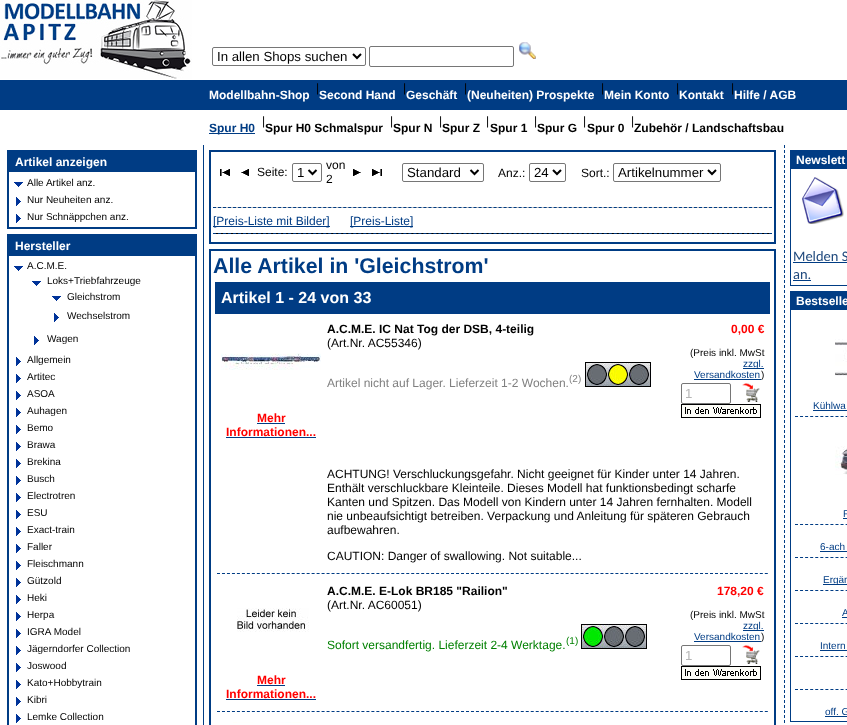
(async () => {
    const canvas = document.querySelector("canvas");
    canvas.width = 847;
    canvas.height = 725;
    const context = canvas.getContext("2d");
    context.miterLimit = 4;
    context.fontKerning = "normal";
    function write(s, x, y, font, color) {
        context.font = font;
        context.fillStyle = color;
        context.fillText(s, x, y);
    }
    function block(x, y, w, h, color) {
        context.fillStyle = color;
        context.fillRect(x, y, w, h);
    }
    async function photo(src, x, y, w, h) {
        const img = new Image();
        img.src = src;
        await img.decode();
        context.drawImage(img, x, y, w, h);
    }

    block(0, 0, 847, 725, "rgb(255, 255, 255)");
    await photo("media/1.png", 0, 0, 192, 79);
    context.beginPath();
    context.roundRect(212.5, 47.5, 153, 18, 1.5);
    context.strokeStyle = "rgb(118, 118, 118)";
    context.stroke();
    context.beginPath();
    context.moveTo(353, 54);
    context.lineTo(357, 58);
    context.lineTo(361, 54);
    context.strokeStyle = "rgb(0, 0, 0)";
    context.lineWidth = 2;
    context.stroke();
    write("In allen Shops suchen", 217, 61, "13.25px Liberation Sans", "rgb(0, 0, 0)");
    context.beginPath();
    context.roundRect(369.5, 46.5, 144, 20, 1.5);
    context.strokeStyle = "rgb(118, 118, 118)";
    context.lineWidth = 1;
    context.stroke();
    await photo("media/2.png", 519, 42, 17, 17);
    block(0, 80, 847, 30, "rgb(0, 60, 132)");
    write("Modellbahn-Shop", 209, 99, "bold 12px Liberation Sans", "rgb(255, 255, 255)");
    write("|", 316, 92, "12px Liberation Sans", "rgb(0, 0, 0)");
    write("Second Hand", 319, 99, "bold 12px Liberation Sans", "rgb(255, 255, 255)");
    write("|", 403, 92, "12px Liberation Sans", "rgb(0, 0, 0)");
    write("Geschäft", 406, 99, "bold 12px Liberation Sans", "rgb(255, 255, 255)");
    write("|", 464, 92, "12px Liberation Sans", "rgb(0, 0, 0)");
    write("(Neuheiten) Prospekte", 467, 99, "bold 12px Liberation Sans", "rgb(255, 255, 255)");
    write("|", 601, 92, "12px Liberation Sans", "rgb(0, 0, 0)");
    write("Mein Konto", 604, 99, "bold 12px Liberation Sans", "rgb(255, 255, 255)");
    write("|", 676, 92, "12px Liberation Sans", "rgb(0, 0, 0)");
    write("Kontakt", 679, 99, "bold 12px Liberation Sans", "rgb(255, 255, 255)");
    write("|", 731, 92, "12px Liberation Sans", "rgb(0, 0, 0)");
    write("Hilfe / AGB", 734, 99, "bold 12px Liberation Sans", "rgb(255, 255, 255)");
    block(209, 133, 46, 1, "rgb(0, 60, 132)");
    write("Spur H0", 209, 132, "bold 12px Liberation Sans", "rgb(0, 60, 132)");
    write("|", 262, 125, "12px Liberation Sans", "rgb(0, 0, 0)");
    write("Spur H0 Schmalspur", 265, 132, "bold 12px Liberation Sans", "rgb(0, 0, 0)");
    write("|", 390, 125, "12px Liberation Sans", "rgb(0, 0, 0)");
    write("Spur N", 393, 132, "bold 12px Liberation Sans", "rgb(0, 0, 0)");
    write("|", 439, 125, "12px Liberation Sans", "rgb(0, 0, 0)");
    write("Spur Z", 442, 132, "bold 12px Liberation Sans", "rgb(0, 0, 0)");
    write("|", 486, 125, "12px Liberation Sans", "rgb(0, 0, 0)");
    write("Spur 1", 490, 132, "bold 12px Liberation Sans", "rgb(0, 0, 0)");
    write("|", 534, 125, "12px Liberation Sans", "rgb(0, 0, 0)");
    write("Spur G", 537, 132, "bold 12px Liberation Sans", "rgb(0, 0, 0)");
    write("|", 583, 125, "12px Liberation Sans", "rgb(0, 0, 0)");
    write("Spur 0", 587, 132, "bold 12px Liberation Sans", "rgb(0, 0, 0)");
    write("|", 631, 125, "12px Liberation Sans", "rgb(0, 0, 0)");
    write("Zubehör / Landschaftsbau", 634, 132, "bold 12px Liberation Sans", "rgb(0, 0, 0)");
    block(203, 145, 1, 580, "rgb(0, 60, 132)");
    context.strokeStyle = "rgb(0, 60, 132)";
    context.lineWidth = 2;
    context.strokeRect(8, 151, 188, 77);
    block(9, 152, 186, 20, "rgb(0, 60, 132)");
    write("Artikel anzeigen", 15, 166, "bold 12px Liberation Sans", "rgb(255, 255, 255)");
    await photo("media/3.png", 14, 182, 9, 5);
    write("Alle Artikel anz.", 27, 186, "10px Liberation Sans", "rgb(0, 0, 0)");
    await photo("media/4.png", 16, 197, 5, 9);
    write("Nur Neuheiten anz.", 27, 203, "10px Liberation Sans", "rgb(0, 0, 0)");
    await photo("media/4.png", 16, 214, 5, 9);
    write("Nur Schnäppchen anz.", 27, 220, "10px Liberation Sans", "rgb(0, 0, 0)");
    context.strokeRect(8, 235, 188, 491);
    block(9, 236, 186, 20, "rgb(0, 60, 132)");
    write("Hersteller", 15, 250, "bold 12px Liberation Sans", "rgb(255, 255, 255)");
    await photo("media/3.png", 14, 266, 9, 5);
    write("A.C.M.E.", 27, 269, "10px Liberation Sans", "rgb(0, 0, 0)");
    await photo("media/3.png", 32, 281, 9, 5);
    write("Loks+Triebfahrzeuge", 47, 284, "10px Liberation Sans", "rgb(0, 0, 0)");
    await photo("media/3.png", 52, 296, 9, 5);
    write("Gleichstrom", 67, 300, "10px Liberation Sans", "rgb(0, 0, 0)");
    await photo("media/4.png", 54, 313, 5, 9);
    write("Wechselstrom", 67, 319, "10px Liberation Sans", "rgb(0, 0, 0)");
    await photo("media/4.png", 34, 336, 5, 9);
    write("Wagen", 47, 342, "10px Liberation Sans", "rgb(0, 0, 0)");
    await photo("media/4.png", 16, 357, 5, 9);
    write("Allgemein", 27, 363, "10px Liberation Sans", "rgb(0, 0, 0)");
    await photo("media/4.png", 16, 374, 5, 9);
    write("Artitec", 27, 380, "10px Liberation Sans", "rgb(0, 0, 0)");
    await photo("media/4.png", 16, 391, 5, 9);
    write("ASOA", 27, 397, "10px Liberation Sans", "rgb(0, 0, 0)");
    await photo("media/4.png", 16, 408, 5, 9);
    write("Auhagen", 27, 414, "10px Liberation Sans", "rgb(0, 0, 0)");
    await photo("media/4.png", 16, 425, 5, 9);
    write("Bemo", 27, 431, "10px Liberation Sans", "rgb(0, 0, 0)");
    await photo("media/4.png", 16, 442, 5, 9);
    write("Brawa", 27, 448, "10px Liberation Sans", "rgb(0, 0, 0)");
    await photo("media/4.png", 16, 459, 5, 9);
    write("Brekina", 27, 465, "10px Liberation Sans", "rgb(0, 0, 0)");
    await photo("media/4.png", 16, 476, 5, 9);
    write("Busch", 27, 482, "10px Liberation Sans", "rgb(0, 0, 0)");
    await photo("media/4.png", 16, 493, 5, 9);
    write("Electrotren", 27, 499, "10px Liberation Sans", "rgb(0, 0, 0)");
    await photo("media/4.png", 16, 510, 5, 9);
    write("ESU", 27, 516, "10px Liberation Sans", "rgb(0, 0, 0)");
    await photo("media/4.png", 16, 527, 5, 9);
    write("Exact-train", 27, 533, "10px Liberation Sans", "rgb(0, 0, 0)");
    await photo("media/4.png", 16, 544, 5, 9);
    write("Faller", 27, 550, "10px Liberation Sans", "rgb(0, 0, 0)");
    await photo("media/4.png", 16, 561, 5, 9);
    write("Fleischmann", 27, 567, "10px Liberation Sans", "rgb(0, 0, 0)");
    await photo("media/4.png", 16, 578, 5, 9);
    write("Gützold", 27, 584, "10px Liberation Sans", "rgb(0, 0, 0)");
    await photo("media/4.png", 16, 595, 5, 9);
    write("Heki", 27, 601, "10px Liberation Sans", "rgb(0, 0, 0)");
    await photo("media/4.png", 16, 612, 5, 9);
    write("Herpa", 27, 618, "10px Liberation Sans", "rgb(0, 0, 0)");
    await photo("media/4.png", 16, 629, 5, 9);
    write("IGRA Model", 27, 635, "10px Liberation Sans", "rgb(0, 0, 0)");
    await photo("media/4.png", 16, 646, 5, 9);
    write("Jägerndorfer Collection", 27, 652, "10px Liberation Sans", "rgb(0, 0, 0)");
    await photo("media/4.png", 16, 663, 5, 9);
    write("Joswood", 27, 669, "10px Liberation Sans", "rgb(0, 0, 0)");
    await photo("media/4.png", 16, 680, 5, 9);
    write("Kato+Hobbytrain", 27, 686, "10px Liberation Sans", "rgb(0, 0, 0)");
    await photo("media/4.png", 16, 697, 5, 9);
    write("Kibri", 27, 703, "10px Liberation Sans", "rgb(0, 0, 0)");
    await photo("media/4.png", 16, 714, 5, 9);
    write("Lemke Collection", 27, 720, "10px Liberation Sans", "rgb(0, 0, 0)");
    context.strokeRect(210, 151, 565, 92);
    await photo("media/5.png", 220, 169, 10, 7);
    await photo("media/6.png", 241, 169, 8, 7);
    write("Seite:", 257, 176, "12px Liberation Sans", "rgb(0, 0, 0)");
    context.beginPath();
    context.roundRect(292.5, 163.5, 29, 18, 1.5);
    context.strokeStyle = "rgb(118, 118, 118)";
    context.lineWidth = 1;
    context.stroke();
    context.beginPath();
    context.moveTo(308.5, 170);
    context.lineTo(312.5, 174);
    context.lineTo(316.5, 170);
    context.strokeStyle = "rgb(0, 0, 0)";
    context.lineWidth = 2;
    context.stroke();
    write("1", 297, 177, "13.25px Liberation Sans", "rgb(0, 0, 0)");
    write("von", 326, 169, "12px Liberation Sans", "rgb(0, 0, 0)");
    write("2", 326, 183, "12px Liberation Sans", "rgb(0, 0, 0)");
    await photo("media/7.png", 353, 169, 8, 7);
    await photo("media/8.png", 372, 169, 10, 7);
    context.beginPath();
    context.roundRect(402.5, 163.5, 81, 18, 1.5);
    context.strokeStyle = "rgb(118, 118, 118)";
    context.lineWidth = 1;
    context.stroke();
    context.beginPath();
    context.moveTo(470.5, 170);
    context.lineTo(474.5, 174);
    context.lineTo(478.5, 170);
    context.strokeStyle = "rgb(0, 0, 0)";
    context.lineWidth = 2;
    context.stroke();
    write("Standard", 407, 177, "13.25px Liberation Sans", "rgb(0, 0, 0)");
    write("Anz.:", 498, 177, "12px Liberation Sans", "rgb(0, 0, 0)");
    context.beginPath();
    context.roundRect(529.5, 163.5, 36, 18, 1.5);
    context.strokeStyle = "rgb(118, 118, 118)";
    context.lineWidth = 1;
    context.stroke();
    context.beginPath();
    context.moveTo(553, 170);
    context.lineTo(557, 174);
    context.lineTo(561, 170);
    context.strokeStyle = "rgb(0, 0, 0)";
    context.lineWidth = 2;
    context.stroke();
    write("24", 534, 177, "13.25px Liberation Sans", "rgb(0, 0, 0)");
    write("Sort.:", 581, 177, "12px Liberation Sans", "rgb(0, 0, 0)");
    context.beginPath();
    context.roundRect(613.5, 163.5, 107, 18, 1.5);
    context.strokeStyle = "rgb(118, 118, 118)";
    context.lineWidth = 1;
    context.stroke();
    context.beginPath();
    context.moveTo(708, 170);
    context.lineTo(712, 174);
    context.lineTo(716, 170);
    context.strokeStyle = "rgb(0, 0, 0)";
    context.lineWidth = 2;
    context.stroke();
    write("Artikelnummer", 618, 177, "13.25px Liberation Sans", "rgb(0, 0, 0)");
    block(213, 207, 559, 1, "rgb(192, 192, 192)");
    context.beginPath();
    context.moveTo(213, 207.5);
    context.lineTo(772, 207.5);
    context.strokeStyle = "rgb(0, 60, 132)";
    context.lineWidth = 1;
    context.setLineDash([3, 2.01]);
    context.stroke();
    block(213, 226, 117, 1, "rgb(0, 60, 132)");
    write("[Preis-Liste mit Bilder]", 213, 225, "12px Liberation Sans", "rgb(0, 60, 132)");
    block(350, 226, 63, 1, "rgb(0, 60, 132)");
    write("[Preis-Liste]", 350, 225, "12px Liberation Sans", "rgb(0, 60, 132)");
    block(213, 233, 559, 1, "rgb(0, 0, 0)");
    context.beginPath();
    context.moveTo(213, 233.5);
    context.lineTo(772, 233.5);
    context.stroke();
    context.lineWidth = 2;
    context.setLineDash([]);
    context.strokeRect(210, 250, 565, 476);
    write("Alle Artikel in 'Gleichstrom'", 213, 273, "bold 21.3px Liberation Sans", "rgb(0, 60, 132)");
    block(215, 282, 555, 32, "rgb(0, 60, 132)");
    write("Artikel 1 - 24 von 33", 221, 303, "bold 16px Liberation Sans", "rgb(255, 255, 255)");
    write("A.C.M.E. IC Nat Tog der DSB, 4-teilig", 327, 333, "bold 12px Liberation Sans", "rgb(0, 0, 0)");
    write("(Art.Nr. AC55346)", 327, 347, "12px Liberation Sans", "rgb(0, 0, 0)");
    write("Artikel nicht auf Lager. Lieferzeit 1-2 Wochen.", 327, 387, "12px Liberation Sans", "rgb(128, 128, 128)");
    write("(2)", 569, 382, "10px Liberation Sans", "rgb(128, 128, 128)");
    await photo("media/9.png", 585, 362, 66, 25);
    write("0,00 €", 731, 333, "bold 12px Liberation Sans", "rgb(255, 0, 0)");
    write("(Preis inkl. MwSt", 690, 356, "10px Liberation Sans", "rgb(0, 0, 0)");
    block(743, 368, 21, 1, "rgb(0, 60, 132)");
    write("zzgl.", 743, 367, "10px Liberation Sans", "rgb(0, 60, 132)");
    write("Versandkosten", 694, 378, "10px Liberation Sans", "rgb(0, 60, 132)");
    block(694, 379, 67, 1, "rgb(0, 60, 132)");
    write(")", 761, 378, "10px Liberation Sans", "rgb(0, 0, 0)");
    context.beginPath();
    context.roundRect(681.5, 383.5, 49, 20, 1.5);
    context.strokeStyle = "rgb(118, 118, 118)";
    context.lineWidth = 1;
    context.stroke();
    write("1", 685, 398, "13.25px Liberation Sans", "rgb(182, 182, 182)");
    await photo("media/10.png", 742, 383, 18, 19);
    await photo("media/11.png", 681, 404, 80, 14);
    await photo("media/12.png", 221, 353, 100, 17);
    write("Mehr", 257, 422, "bold 12px Liberation Sans", "rgb(255, 0, 0)");
    block(257, 423, 28, 1, "rgb(0, 60, 132)");
    write("Informationen...", 226, 436, "bold 12px Liberation Sans", "rgb(255, 0, 0)");
    block(226, 437, 90, 1, "rgb(0, 60, 132)");
    write("ACHTUNG! Verschluckungsgefahr. Nicht geeignet für Kinder unter 14 Jahren.", 327, 478, "12px Liberation Sans", "rgb(0, 0, 0)");
    write("Enthält verschluckbare Kleinteile. Dieses Modell hat funktionsbedingt scharfe", 327, 492, "12px Liberation Sans", "rgb(0, 0, 0)");
    write("Kanten und Spitzen. Das Modell von Kindern unter 14 Jahren fernhalten. Modell", 327, 506, "12px Liberation Sans", "rgb(0, 0, 0)");
    write("nie unbeaufsichtigt betreiben. Verpackung und Anleitung für späteren Gebrauch", 327, 520, "12px Liberation Sans", "rgb(0, 0, 0)");
    write("aufbewahren.", 327, 534, "12px Liberation Sans", "rgb(0, 0, 0)");
    write("CAUTION: Danger of swallowing. Not suitable...", 327, 560, "12px Liberation Sans", "rgb(0, 0, 0)");
    context.beginPath();
    context.moveTo(217, 573.5);
    context.lineTo(768, 573.5);
    context.strokeStyle = "rgb(0, 60, 132)";
    context.setLineDash([3, 1.98]);
    context.stroke();
    write("A.C.M.E. E-Lok BR185 \"Railion\"", 327, 595, "bold 12px Liberation Sans", "rgb(0, 0, 0)");
    write("(Art.Nr. AC60051)", 327, 609, "12px Liberation Sans", "rgb(0, 0, 0)");
    write("Sofort versandfertig. Lieferzeit 2-4 Werktage.", 327, 649, "12px Liberation Sans", "rgb(0, 128, 0)");
    write("(1)", 566, 644, "10px Liberation Sans", "rgb(0, 128, 0)");
    await photo("media/13.png", 581, 624, 66, 25);
    write("178,20 €", 717, 595, "bold 12px Liberation Sans", "rgb(255, 0, 0)");
    write("(Preis inkl. MwSt", 690, 618, "10px Liberation Sans", "rgb(0, 0, 0)");
    block(743, 630, 21, 1, "rgb(0, 60, 132)");
    write("zzgl.", 743, 629, "10px Liberation Sans", "rgb(0, 60, 132)");
    write("Versandkosten", 694, 640, "10px Liberation Sans", "rgb(0, 60, 132)");
    block(694, 641, 67, 1, "rgb(0, 60, 132)");
    write(")", 761, 640, "10px Liberation Sans", "rgb(0, 0, 0)");
    context.beginPath();
    context.roundRect(681.5, 645.5, 49, 20, 1.5);
    context.strokeStyle = "rgb(118, 118, 118)";
    context.setLineDash([]);
    context.stroke();
    write("1", 685, 660, "13.25px Liberation Sans", "rgb(182, 182, 182)");
    await photo("media/10.png", 742, 645, 18, 19);
    await photo("media/11.png", 681, 666, 80, 14);
    await photo("media/14.png", 237, 608, 72, 24);
    write("Mehr", 257, 684, "bold 12px Liberation Sans", "rgb(255, 0, 0)");
    block(257, 685, 28, 1, "rgb(0, 60, 132)");
    write("Informationen...", 226, 698, "bold 12px Liberation Sans", "rgb(255, 0, 0)");
    block(226, 699, 90, 1, "rgb(0, 60, 132)");
    context.beginPath();
    context.moveTo(217, 711.5);
    context.lineTo(768, 711.5);
    context.strokeStyle = "rgb(0, 60, 132)";
    context.setLineDash([3, 1.98]);
    context.stroke();
    await photo("media/15.png", 233, 722, 68, 1);
    context.beginPath();
    context.moveTo(784.5, 145);
    context.lineTo(784.5, 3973);
    context.setLineDash([3, 2]);
    context.stroke();
    context.setLineDash([]);
    context.strokeRect(790.5, 150.5, 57, 135);
    block(791, 151, 56, 18, "rgb(0, 60, 132)");
    write("Newslett", 796, 164, "bold 12px Liberation Sans", "rgb(255, 255, 255)");
    await photo("media/16.png", 802, 177, 42, 47);
    write("Melden S", 793, 261, "14.5px Carlito", "rgb(31, 73, 125)");
    block(793, 262, 54, 1, "rgb(0, 60, 132)");
    write("an.", 793, 279, "14.5px Carlito", "rgb(31, 73, 125)");
    block(793, 280, 18, 1, "rgb(0, 60, 132)");
    context.strokeRect(790.5, 291.5, 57, 430);
    block(791, 292, 56, 18, "rgb(0, 60, 132)");
    write("Bestselle", 796, 305, "bold 12px Liberation Sans", "rgb(255, 255, 255)");
    await photo("media/17.png", 835, 339, 12, 37);
    write("Kühlwa", 813, 409, "10px Liberation Sans", "rgb(0, 60, 132)");
    block(813, 410, 34, 1, "rgb(0, 60, 132)");
    context.beginPath();
    context.moveTo(795, 416.5);
    context.lineTo(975, 416.5);
    context.setLineDash([3, 2.06]);
    context.stroke();
    await photo("media/18.png", 835, 446, 12, 29);
    write("F", 843, 517, "10px Liberation Sans", "rgb(0, 60, 132)");
    block(843, 518, 4, 1, "rgb(0, 60, 132)");
    block(820, 551, 27, 1, "rgb(0, 60, 132)");
    context.beginPath();
    context.moveTo(795, 524.5);
    context.lineTo(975, 524.5);
    context.moveTo(795, 557.5);
    context.lineTo(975, 557.5);
    context.stroke();
    write("6-ach", 820, 550, "10px Liberation Sans", "rgb(0, 60, 132)");
    block(823, 584, 24, 1, "rgb(0, 60, 132)");
    write("Ergän", 823, 583, "10px Liberation Sans", "rgb(0, 60, 132)");
    block(842, 617, 5, 1, "rgb(0, 60, 132)");
    context.beginPath();
    context.moveTo(795, 590.5);
    context.lineTo(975, 590.5);
    context.moveTo(795, 623.5);
    context.lineTo(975, 623.5);
    context.stroke();
    write("A", 842, 616, "10px Liberation Sans", "rgb(0, 60, 132)");
    write("Intern", 820, 649, "10px Liberation Sans", "rgb(0, 60, 132)");
    block(820, 650, 27, 1, "rgb(0, 60, 132)");
    context.beginPath();
    context.moveTo(795, 656.5);
    context.lineTo(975, 656.5);
    context.moveTo(795, 689.5);
    context.lineTo(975, 689.5);
    context.stroke();
    write("off. G", 825, 715, "10px Liberation Sans", "rgb(0, 60, 132)");
    block(825, 716, 22, 1, "rgb(0, 60, 132)");
})();
